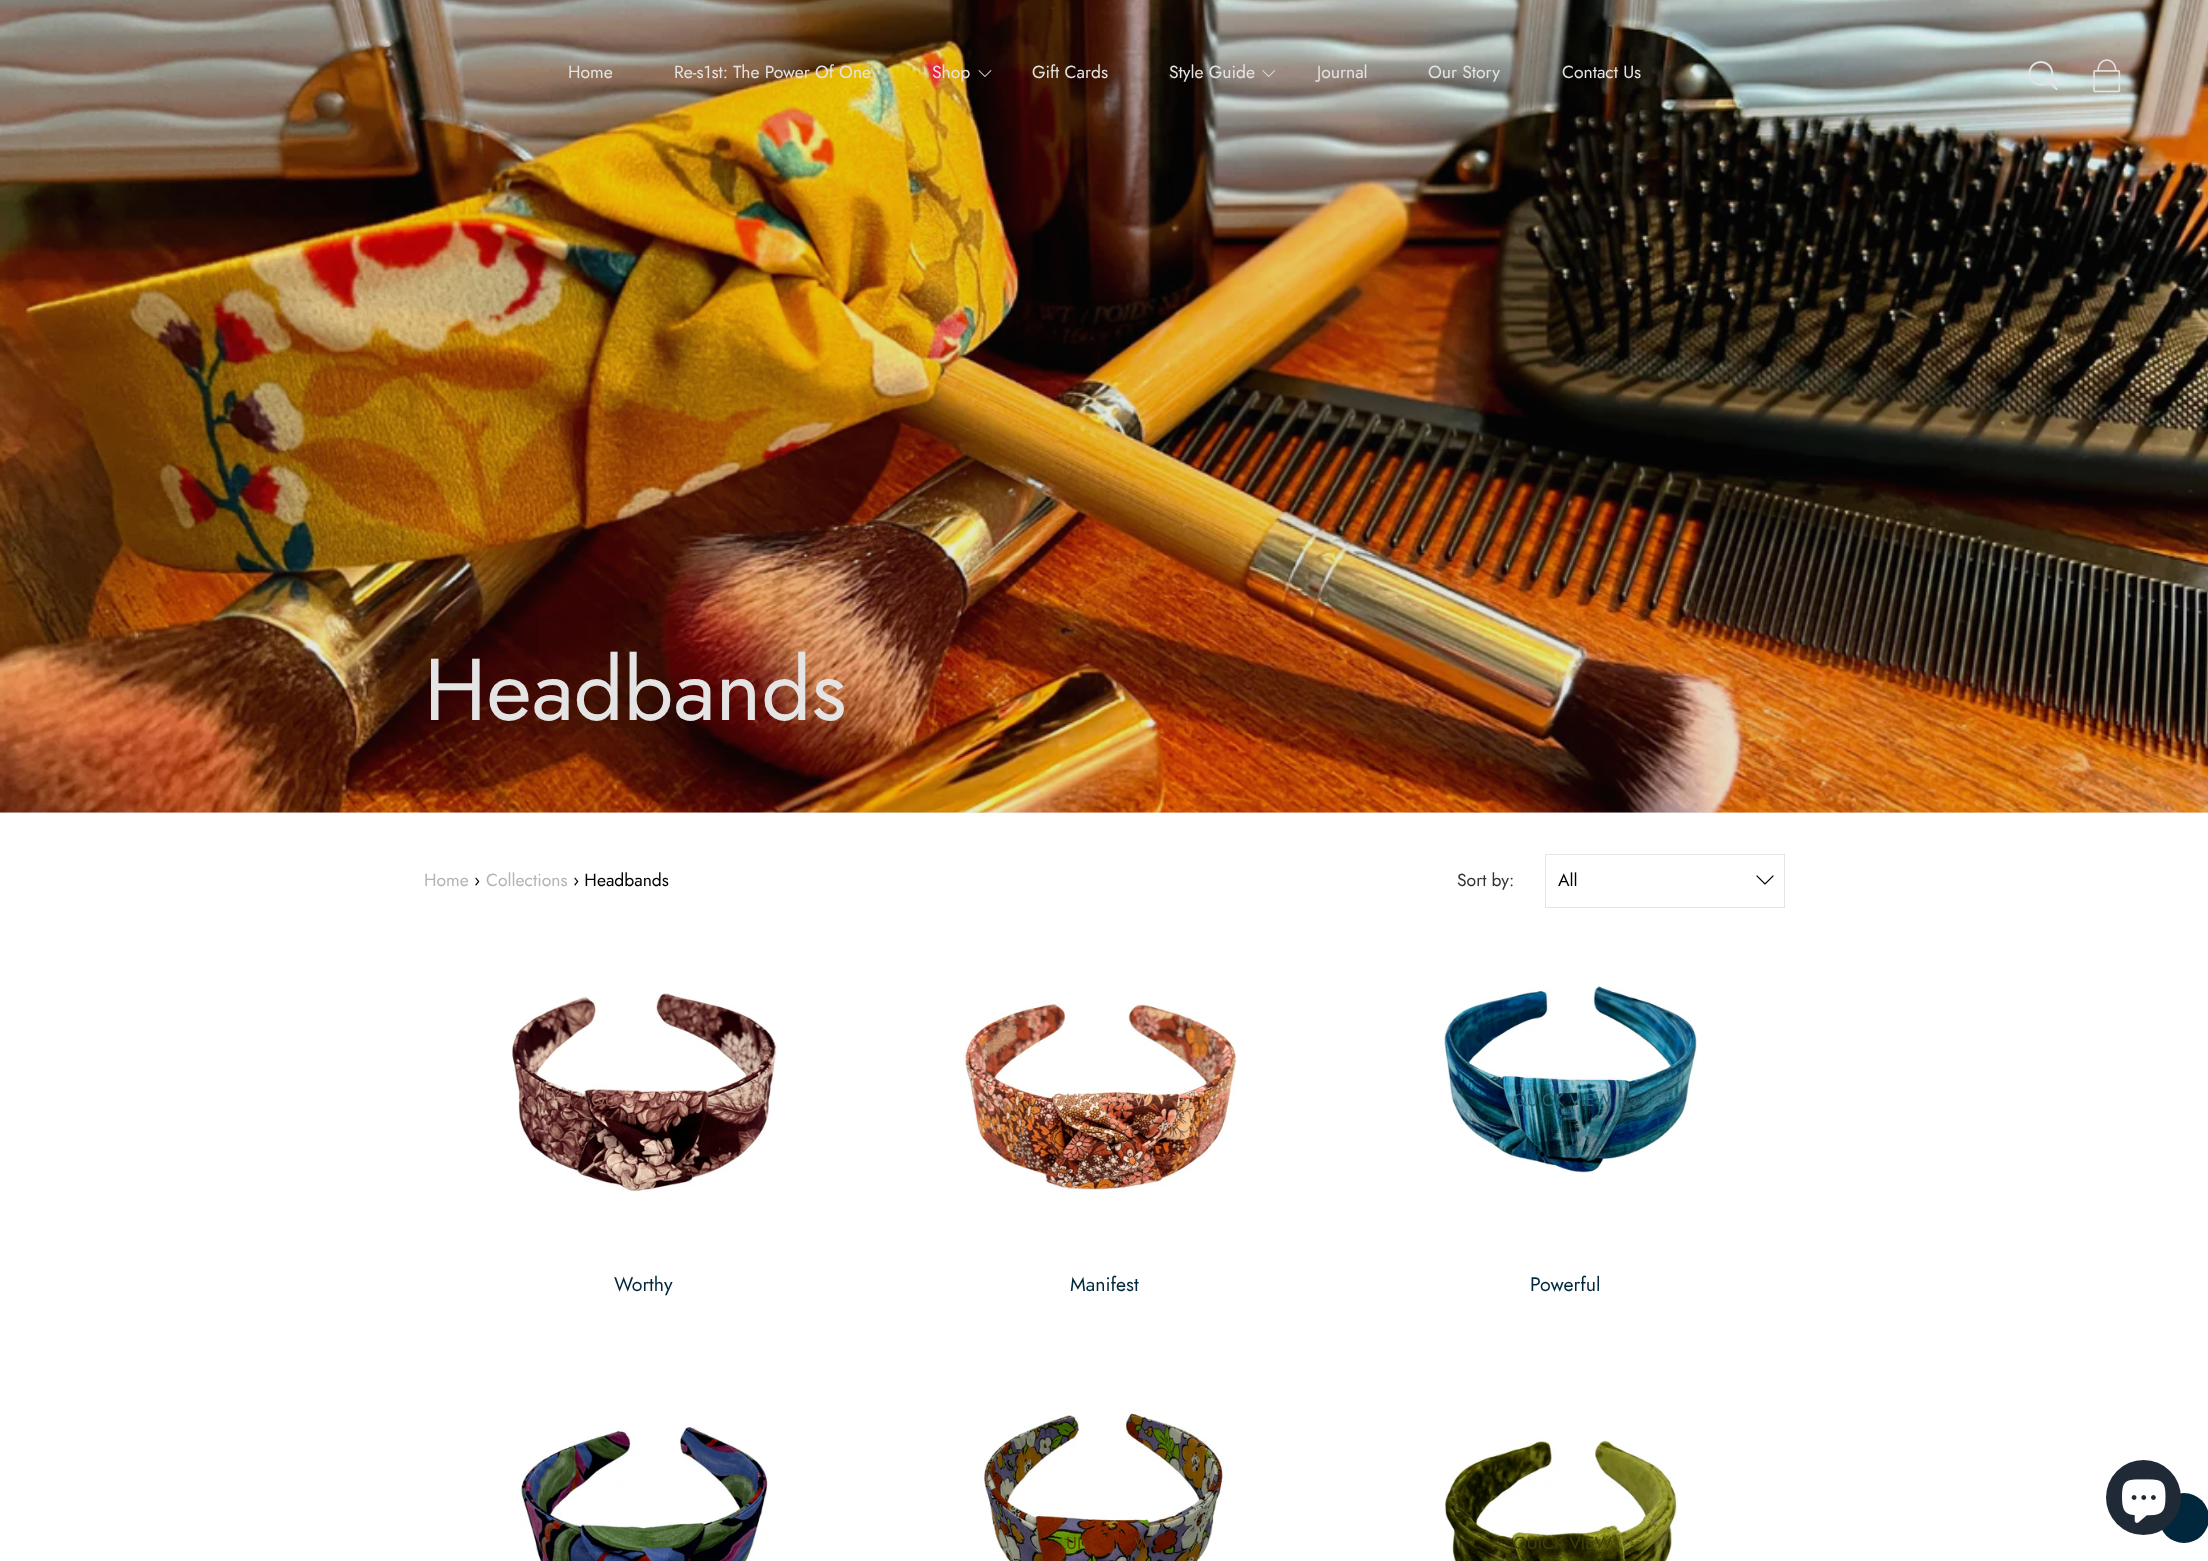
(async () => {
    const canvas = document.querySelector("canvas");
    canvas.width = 2208;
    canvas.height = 1561;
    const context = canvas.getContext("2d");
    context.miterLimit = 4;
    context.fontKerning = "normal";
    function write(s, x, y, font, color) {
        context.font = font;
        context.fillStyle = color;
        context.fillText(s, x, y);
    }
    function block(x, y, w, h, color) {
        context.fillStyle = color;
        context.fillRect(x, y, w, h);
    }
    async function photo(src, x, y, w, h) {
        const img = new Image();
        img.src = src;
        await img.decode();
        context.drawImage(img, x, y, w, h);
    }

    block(0, 0, 2208, 1561, "rgb(255, 255, 255)");
    block(0, 812, 2208, 1, "rgb(233, 233, 233)");
    await photo("media/5.png", 0, 0, 2208, 813);
    write("Home", 568, 78, "17.5px Jost", "rgb(228, 228, 228)");
    write("Re-s1st: The Power Of One", 674, 78, "17.5px Jost", "rgb(228, 228, 228)");
    write("Shop", 932, 78, "17.5px Jost", "rgb(228, 228, 228)");
    await photo("media/1.png", 978, 70, 14, 7);
    write("Gift Cards", 1032, 78, "17.5px Jost", "rgb(228, 228, 228)");
    write("Style Guide", 1169, 78, "17.5px Jost", "rgb(228, 228, 228)");
    await photo("media/2.png", 1262, 70, 13, 7);
    write("Journal", 1317, 78, "17.5px Jost", "rgb(228, 228, 228)");
    write("Our Story", 1428, 78, "17.5px Jost", "rgb(228, 228, 228)");
    write("Contact Us", 1562, 78, "17.5px Jost", "rgb(228, 228, 228)");
    await photo("media/3.png", 2028, 61, 30, 30);
    await photo("media/4.png", 2093, 59, 28, 34);
    write("Headbands", 424, 720, "87.5px Jost", "rgb(228, 228, 228)");
    write("Home", 424, 886, "17.5px Jost", "rgb(179, 179, 179)");
    write("›", 474, 886, "17.5px Jost", "rgb(0, 0, 0)");
    write("Collections", 486, 886, "17.5px Jost", "rgb(179, 179, 179)");
    write("› Headbands", 573, 886, "17.5px Jost", "rgb(0, 0, 0)");
    write("Sort by:", 1457, 886, "17.5px Jost", "rgb(51, 51, 51)");
    context.strokeStyle = "rgb(228, 228, 228)";
    context.strokeRect(1545.5, 854.5, 239, 53);
    write("All", 1558, 886, "17.5px Jost", "rgb(0, 0, 0)");
    await photo("media/6.png", 1756, 875, 18, 10);
    await photo("media/7.png", 511, 993, 266, 199);
    write("QUICK VIEW", 591, 1106, "17.5px Jost", "rgb(145, 94, 86)");
    write("Worthy", 614, 1291, "19.5px Jost", "rgb(0, 39, 60)");
    await photo("media/8.png", 960, 1000, 277, 192);
    write("QUICK VIEW", 1052, 1106, "17.5px Jost", "rgb(199, 148, 121)");
    write("Manifest", 1070, 1291, "19.5px Jost", "rgb(0, 39, 60)");
    await photo("media/9.png", 1443, 986, 254, 187);
    write("QUICK VIEW", 1513, 1106, "17.5px Jost", "rgb(39, 98, 118)");
    write("Powerful", 1530, 1291, "19.5px Jost", "rgb(0, 39, 60)");
    await photo("media/10.png", 520, 1426, 249, 135);
    await photo("media/11.png", 984, 1410, 240, 151);
    write("UI", 1066, 1549, "17.5px Jost", "rgb(99, 58, 7)");
    write("W", 1134, 1549, "17.5px Jost", "rgb(99, 58, 7)");
    await photo("media/12.png", 1444, 1436, 234, 125);
    write("QUICK VIEW", 1513, 1549, "17.5px Jost", "rgb(65, 65, 7)");
    context.fillStyle = "rgb(0, 39, 60)";
    context.beginPath();
    context.arc(2184, 1518, 25, 0, Math.PI * 2);
    context.fill();
    context.fillStyle = "rgb(32, 42, 54)";
    context.beginPath();
    context.arc(2143.5, 1497.5, 37.5, 0, Math.PI * 2);
    context.fill();
    await photo("media/13.png", 2122, 1479, 44, 44);
})();
